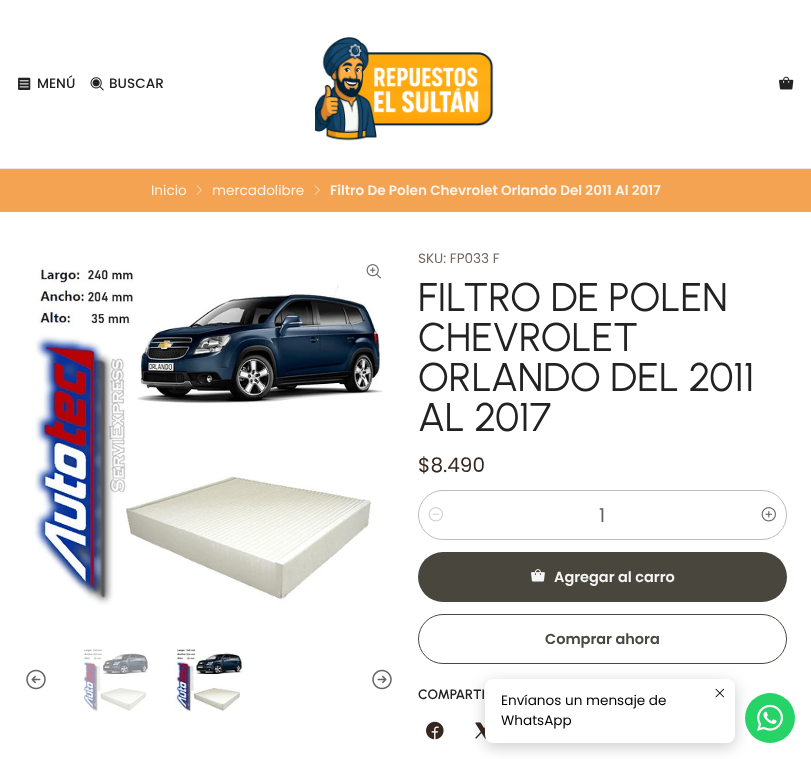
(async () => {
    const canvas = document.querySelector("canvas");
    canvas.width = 811;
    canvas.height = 759;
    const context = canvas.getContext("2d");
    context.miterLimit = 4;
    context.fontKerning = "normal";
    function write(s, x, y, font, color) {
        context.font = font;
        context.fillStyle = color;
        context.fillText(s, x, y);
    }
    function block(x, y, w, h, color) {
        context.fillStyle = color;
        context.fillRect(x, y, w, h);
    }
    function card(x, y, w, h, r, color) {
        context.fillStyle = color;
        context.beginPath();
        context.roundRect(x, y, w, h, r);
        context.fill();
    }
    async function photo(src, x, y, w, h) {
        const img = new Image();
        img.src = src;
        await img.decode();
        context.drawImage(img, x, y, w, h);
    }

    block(0, 0, 811, 759, "rgb(255, 255, 255)");
    block(0, 168, 811, 1, "rgb(233, 233, 233)");
    await photo("media/1.png", 18, 77, 13, 13);
    write("MENÚ", 37, 88, "500 13.6px Poppins", "rgb(34, 34, 34)");
    await photo("media/2.png", 90, 77, 14, 14);
    write("BUSCAR", 109, 88, "500 13.6px Poppins", "rgb(34, 34, 34)");
    await photo("media/3.png", 315, 37, 179, 104);
    await photo("media/4.png", 779, 76, 15, 14);
    block(0, 169, 811, 43, "rgb(244, 163, 83)");
    write("Inicio", 151, 195, "13.6px Poppins", "rgb(245, 244, 237)");
    await photo("media/5.png", 196, 185, 6, 10);
    write("mercadolibre", 212, 195, "13.6px Poppins", "rgb(245, 244, 237)");
    await photo("media/5.png", 314, 185, 6, 10);
    write("Filtro De Polen Chevrolet Orlando Del 2011 Al 2017", 330, 195, "600 13.6px Poppins", "rgb(245, 244, 237)");
    await photo("media/7.png", 34, 267, 349, 338);
    await photo("media/6.png", 366, 264, 15, 15);
    await photo("media/8.png", 26, 669, 20, 21);
    await photo("media/9.png", 81, 649, 68, 63);
    await photo("media/10.png", 174, 649, 70, 63);
    await photo("media/11.png", 372, 669, 20, 21);
    write("SKU: FP033 F", 418, 263, "13.6px Poppins", "rgb(114, 104, 97)");
    write("FILTRO DE POLEN", 418, 311, "40px Urbanist", "rgb(34, 34, 34)");
    write("CHEVROLET", 418, 351, "40px Urbanist", "rgb(34, 34, 34)");
    write("ORLANDO DEL 2011", 418, 391, "40px Urbanist", "rgb(34, 34, 34)");
    write("AL 2017", 418, 431, "40px Urbanist", "rgb(34, 34, 34)");
    write("$8.490", 418, 472, "20px Poppins", "rgb(53, 39, 29)");
    context.beginPath();
    context.roundRect(418.5, 490.5, 368, 49, 24.5);
    context.strokeStyle = "rgb(189, 189, 189)";
    context.stroke();
    await photo("media/12.png", 428, 507, 15, 15);
    write("1", 599, 522, "19px Poppins", "rgb(100, 100, 100)");
    await photo("media/13.png", 761, 507, 15, 15);
    card(418, 552, 369, 50, 25, "rgb(73, 70, 62)");
    await photo("media/14.png", 531, 569, 14, 13);
    write("Agregar al carro", 554, 582, "600 14.5px Poppins", "rgb(245, 245, 245)");
    context.beginPath();
    context.roundRect(418.5, 614.5, 368, 49, 24.5);
    context.strokeStyle = "rgb(73, 70, 62)";
    context.stroke();
    write("Comprar ahora", 545, 644, "600 14.5px Poppins", "rgb(73, 70, 62)");
    write("COMPARTI", 418, 699, "600 13.6px Urbanist", "rgb(34, 34, 34)");
    await photo("media/15.png", 426, 721, 18, 19);
    await photo("media/16.png", 475, 722, 12, 17);
    context.fillStyle = "rgba(0, 0, 0, 0.2)";
    context.filter = "blur(7.5px)";
    context.beginPath();
    context.roundRect(485, 683, 250, 64, 8);
    context.fill();
    context.filter = "none";
    card(485, 679, 250, 64, 8, "rgb(255, 255, 255)");
    await photo("media/17.png", 715, 688, 9, 10);
    write("Envíanos un mensaje de", 501, 705, "13.6px Poppins", "rgb(0, 0, 0)");
    write("WhatsApp", 501, 725, "13.6px Poppins", "rgb(0, 0, 0)");
    context.fillStyle = "rgb(37, 211, 102)";
    context.beginPath();
    context.arc(770, 718, 25, 0, Math.PI * 2);
    context.fill();
    await photo("media/18.png", 757, 704, 26, 27);
})();
